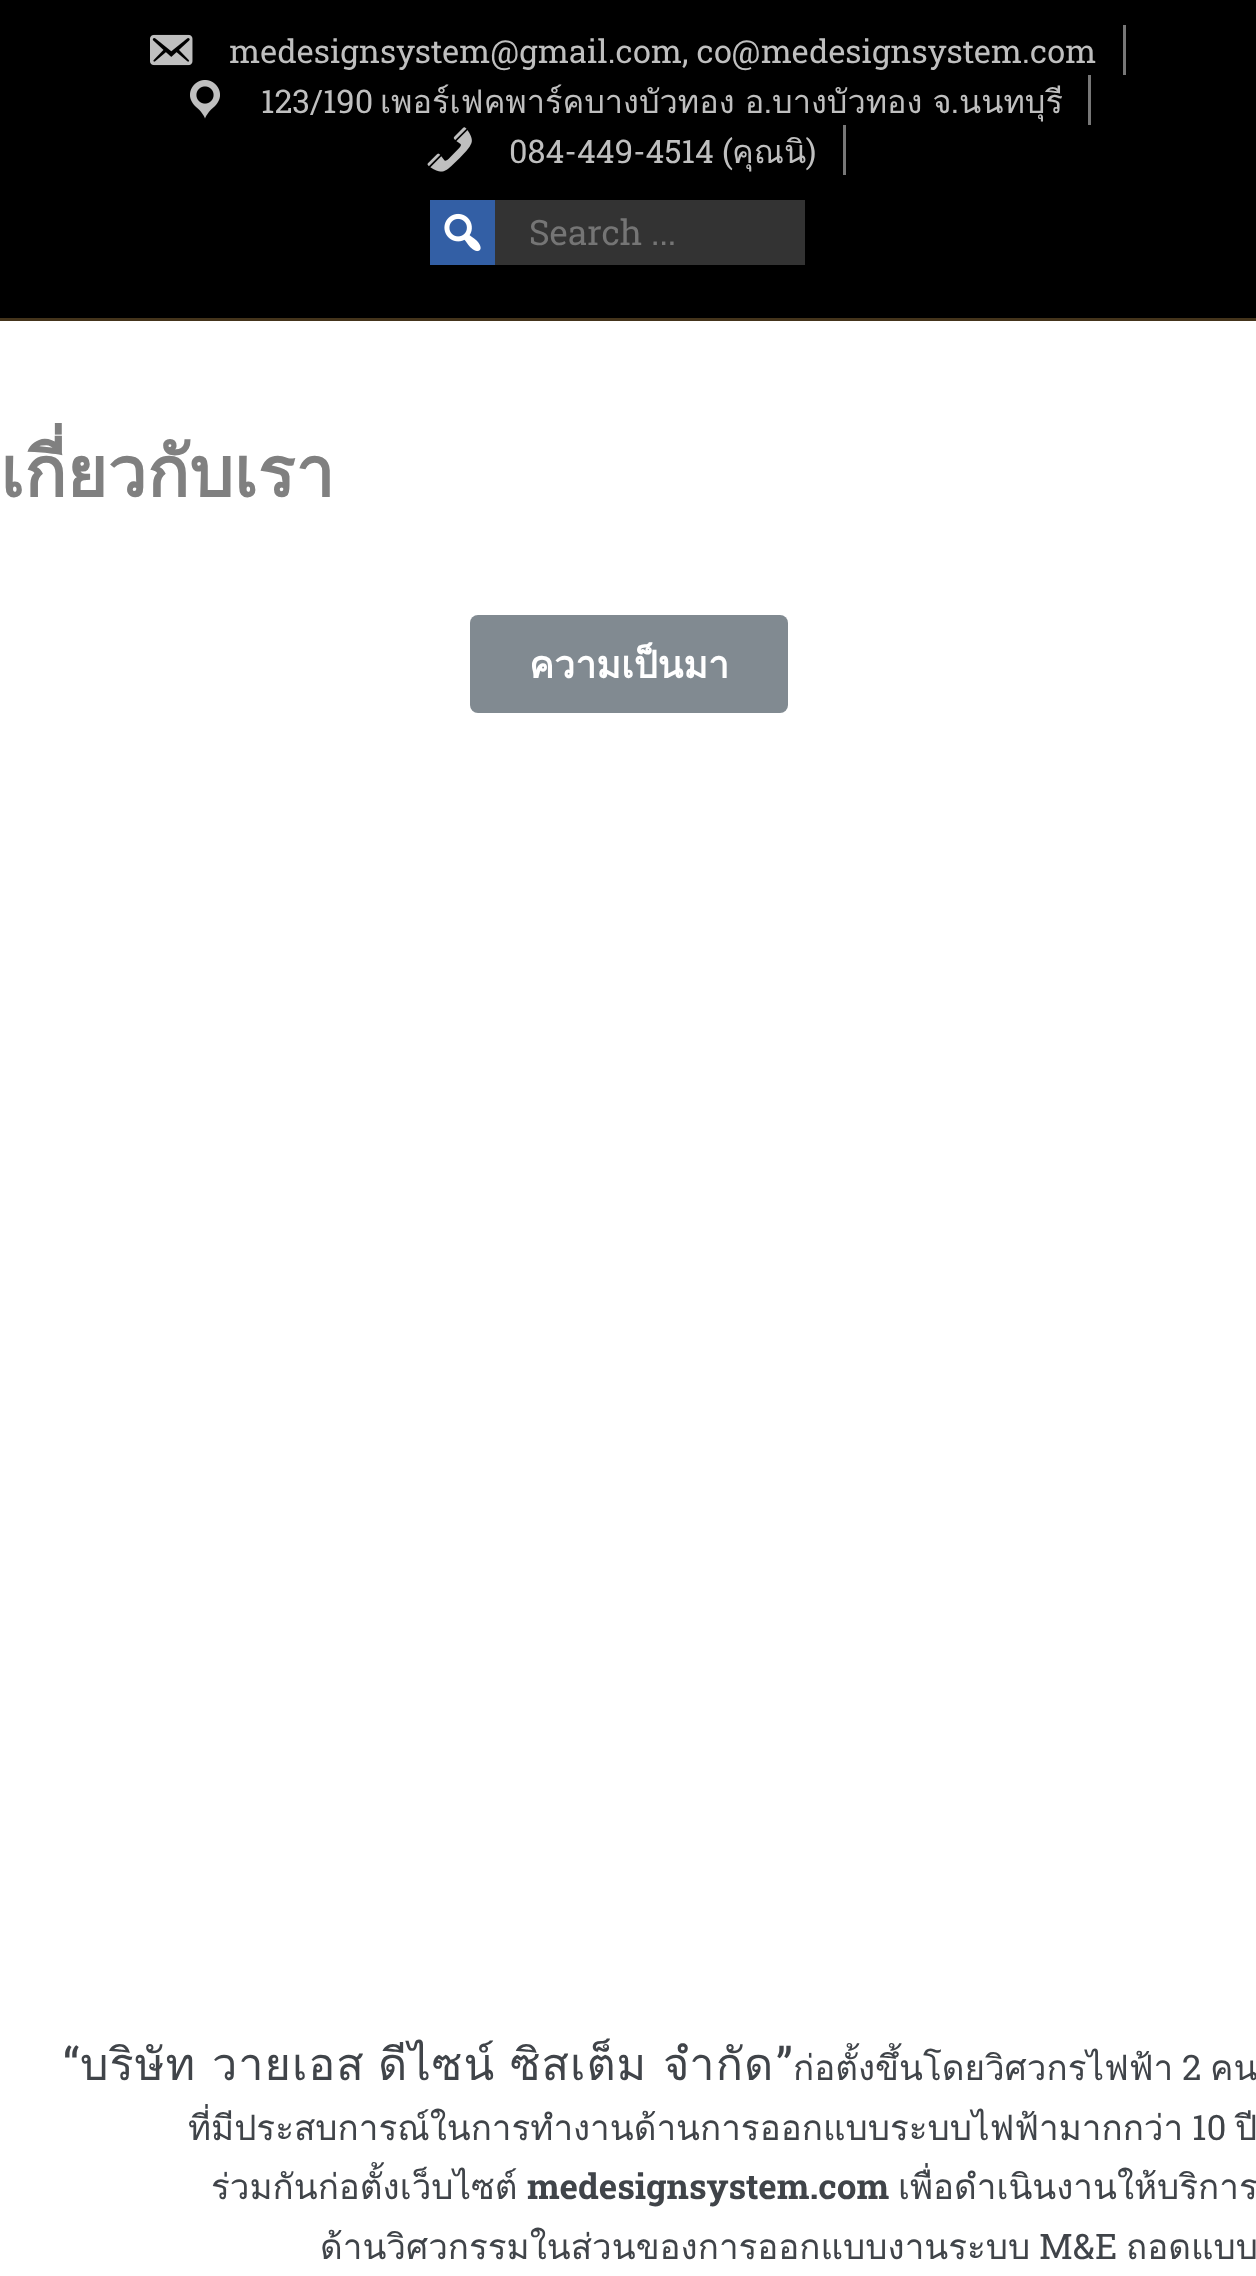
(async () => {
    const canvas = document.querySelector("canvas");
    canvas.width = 1256;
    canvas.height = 2276;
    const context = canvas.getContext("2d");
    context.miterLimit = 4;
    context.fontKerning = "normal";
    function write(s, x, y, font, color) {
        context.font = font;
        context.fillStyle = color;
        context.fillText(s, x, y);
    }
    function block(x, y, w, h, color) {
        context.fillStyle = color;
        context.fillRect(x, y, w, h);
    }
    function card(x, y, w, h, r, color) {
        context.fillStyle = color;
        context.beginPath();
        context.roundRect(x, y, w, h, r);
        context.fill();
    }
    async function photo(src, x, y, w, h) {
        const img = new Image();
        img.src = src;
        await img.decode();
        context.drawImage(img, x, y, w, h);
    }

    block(0, 0, 1256, 2276, "rgb(255, 255, 255)");
    block(0, 0, 1256, 318, "rgb(0, 0, 0)");
    block(1123, 25, 3, 50, "rgb(119, 119, 119)");
    await photo("media/1.png", 150, 34, 43, 32);
    write("medesignsystem@gmail.com, co@medesignsystem.com", 229, 63, "32.5px Roboto Slab", "rgb(191, 191, 191)");
    block(1088, 75, 3, 50, "rgb(119, 119, 119)");
    await photo("media/2.png", 190, 80, 30, 39);
    write("123/190", 261, 113, "32.5px Roboto Slab", "rgb(191, 191, 191)");
    context.wordSpacing = "-1px";
    write("เพอร์เฟคพาร์คบางบัวทอง อ", 380, 113, "32.5px Loma", "rgb(191, 191, 191)");
    context.wordSpacing = "0px";
    write(".", 764, 113, "32.5px Roboto Slab", "rgb(191, 191, 191)");
    context.wordSpacing = "-1px";
    write("บางบัวทอง จ", 772, 113, "32.5px Loma", "rgb(191, 191, 191)");
    context.wordSpacing = "0px";
    write(".", 951, 113, "32.5px Roboto Slab", "rgb(191, 191, 191)");
    write("นนทบุรี", 959, 113, "32.5px Loma", "rgb(191, 191, 191)");
    block(843, 125, 3, 50, "rgb(119, 119, 119)");
    await photo("media/3.png", 427, 127, 45, 45);
    write("084-449-4514 (", 509, 163, "32.5px Roboto Slab", "rgb(191, 191, 191)");
    write("คุณนิ", 732, 163, "32.5px Loma", "rgb(191, 191, 191)");
    write(")", 806, 163, "32.5px Roboto Slab", "rgb(191, 191, 191)");
    block(430, 200, 65, 65, "rgb(51, 95, 165)");
    await photo("media/4.png", 444, 213, 37, 39);
    block(495, 200, 310, 65, "rgb(51, 51, 51)");
    write("Search ...", 529, 245, "35px Roboto Slab", "rgb(117, 117, 117)");
    block(0, 318, 1256, 3, "rgb(68, 52, 27)");
    write("เกี่ยวกับเรา", 0, 497, "bold 70px Loma", "rgb(128, 128, 128)");
    card(470, 615, 318, 98, 8, "rgb(129, 138, 145)");
    write("ความเป็นมา", 529, 678, "bold 37.5px Loma", "rgb(255, 255, 255)");
    context.letterSpacing = "1px";
    write("“", 63, 2080, "45px Roboto Slab", "rgb(64, 68, 73)");
    write("บริษัท", 80, 2080, "45px Loma", "rgb(64, 68, 73)");
    write("วายเอส", 212, 2080, "45px Loma", "rgb(64, 68, 73)");
    write("ดีไซน์", 378, 2080, "45px Loma", "rgb(64, 68, 73)");
    write("ซิสเต็ม", 510, 2080, "45px Loma", "rgb(64, 68, 73)");
    write("จำกัด", 663, 2080, "45px Loma", "rgb(64, 68, 73)");
    write("”", 776, 2080, "45px Roboto Slab", "rgb(64, 68, 73)");
    context.letterSpacing = "0px";
    write("ก่อตั้งขึ้นโดยวิศวกรไฟฟ้า", 793, 2080, "35px Loma", "rgb(64, 68, 73)");
    write("2", 1182, 2080, "35px Roboto Slab", "rgb(64, 68, 73)");
    write("คน", 1210, 2080, "35px Loma", "rgb(64, 68, 73)");
    write("ที่มีประสบการณ์ในการทำงานด้านการออกแบบระบบไฟฟ้ามากกว่า", 188, 2140, "35px Loma", "rgb(64, 68, 73)");
    write("10", 1192, 2140, "35px Roboto Slab", "rgb(64, 68, 73)");
    write("ปี", 1235, 2140, "35px Loma", "rgb(64, 68, 73)");
    write("ร่วมกันก่อตั้งเว็บไซต์", 211, 2199, "35px Loma", "rgb(64, 68, 73)");
    write("medesignsystem.com", 527, 2199, "bold 35px Roboto Slab", "rgb(64, 68, 73)");
    write("เพื่อดำเนินงานให้บริการ", 898, 2199, "35px Loma", "rgb(64, 68, 73)");
    write("ด้านวิศวกรรมในส่วนของการออกแบบงานระบบ", 320, 2259, "35px Loma", "rgb(64, 68, 73)");
    write("M&E", 1039, 2259, "35px Roboto Slab", "rgb(64, 68, 73)");
    write("ถอดแบบ", 1126, 2259, "35px Loma", "rgb(64, 68, 73)");
})();
